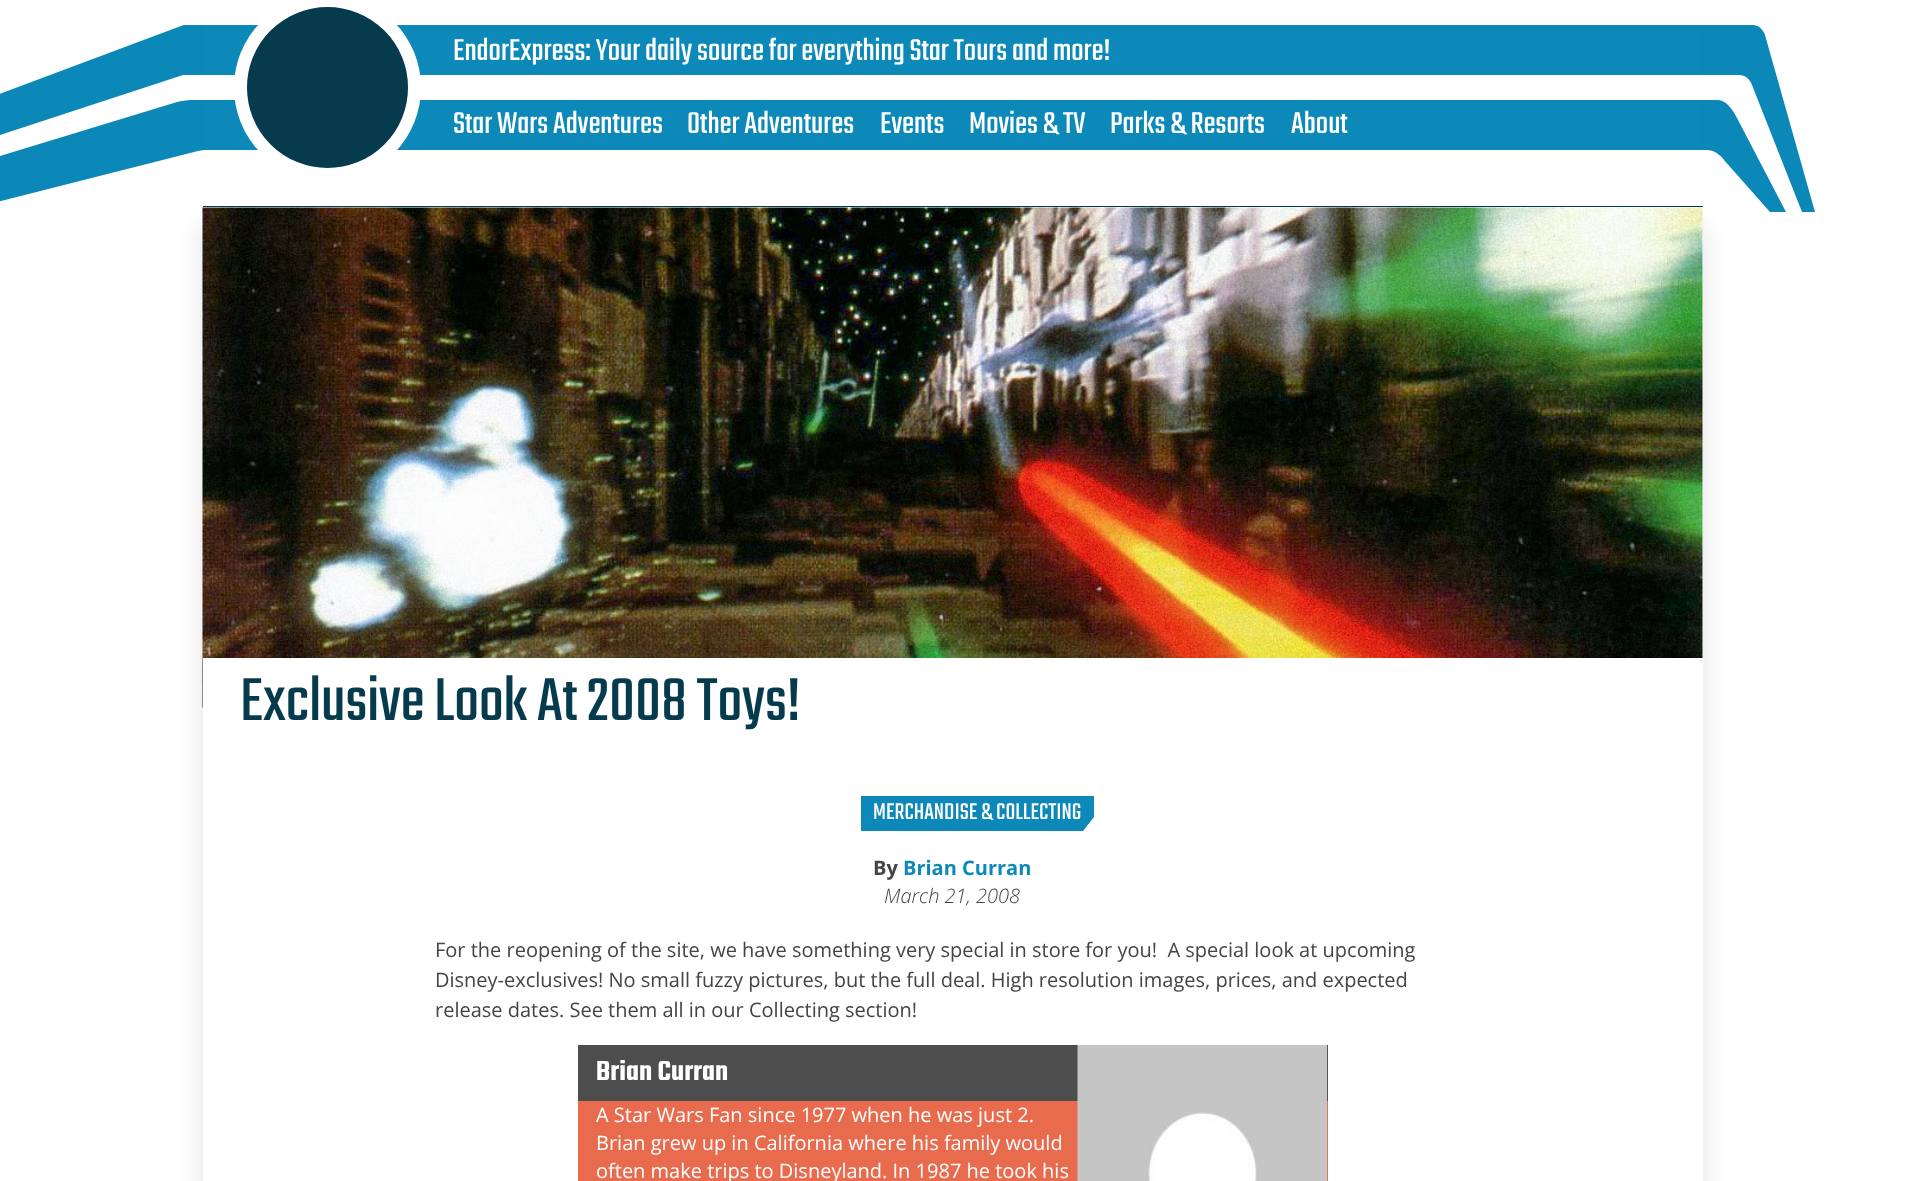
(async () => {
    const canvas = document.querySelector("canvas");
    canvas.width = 1905;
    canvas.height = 1181;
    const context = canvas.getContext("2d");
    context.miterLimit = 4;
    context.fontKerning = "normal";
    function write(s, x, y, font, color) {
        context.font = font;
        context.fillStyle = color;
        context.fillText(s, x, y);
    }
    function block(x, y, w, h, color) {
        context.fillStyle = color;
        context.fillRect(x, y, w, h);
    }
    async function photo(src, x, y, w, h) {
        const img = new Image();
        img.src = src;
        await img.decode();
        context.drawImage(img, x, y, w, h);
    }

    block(0, 0, 1905, 1181, "rgb(255, 255, 255)");
    context.fillStyle = "rgb(12, 136, 184)";
    context.beginPath();
    context.moveTo(184, 25);
    context.lineTo(181, 26);
    context.lineTo(-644, 335);
    context.lineTo(-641, 345);
    context.lineTo(183, 75);
    context.lineTo(204, 75);
    context.lineTo(204, 25);
    context.closePath();
    context.fill();
    context.fillStyle = "rgba(0, 0, 0, 0.1)";
    context.filter = "blur(12.5px)";
    context.beginPath();
    context.rect(201, 225, 1503, 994);
    context.fill();
    context.filter = "none";
    context.fillStyle = "rgb(12, 136, 184)";
    context.beginPath();
    context.moveTo(204, 150);
    context.lineTo(198, 151);
    context.lineTo(-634, 362);
    context.lineTo(-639, 351);
    context.lineTo(177, 102);
    context.bezierCurveTo(182, 101, 186, 100, 191, 100);
    context.lineTo(204, 100);
    context.closePath();
    context.fill();
    block(204, 25, 1497, 50, "rgb(12, 137, 185)");
    block(204, 100, 1497, 50, "rgb(12, 137, 185)");
    context.fillStyle = "rgb(5, 59, 76)";
    context.beginPath();
    context.arc(327.5, 87.5, 87, 0, Math.PI * 2);
    context.fill();
    context.strokeStyle = "rgb(255, 255, 255)";
    context.lineWidth = 13;
    context.stroke();
    write("EndorExpress: Your daily source for everything Star Tours and more!", 453, 60, "33.3px Teko", "rgb(255, 255, 255)");
    block(203, 209, 1500, 972, "rgb(255, 255, 255)");
    block(203, 206, 1500, 1, "rgb(5, 60, 77)");
    await photo("media/1.png", 202, 207, 1501, 501);
    context.fillStyle = "rgb(12, 136, 184)";
    context.beginPath();
    context.moveTo(1765, 35);
    context.bezierCurveTo(1763, 29, 1758, 25, 1753, 25);
    context.lineTo(1701, 25);
    context.lineTo(1701, 75);
    context.lineTo(1739, 75);
    context.bezierCurveTo(1745, 75, 1750, 79, 1752, 85);
    context.lineTo(1802, 212);
    context.lineTo(1815, 212);
    context.closePath();
    context.fill();
    context.beginPath();
    context.moveTo(1737, 118);
    context.bezierCurveTo(1733, 110, 1726, 100, 1718, 100);
    context.lineTo(1701, 100);
    context.lineTo(1701, 150);
    context.lineTo(1707, 150);
    context.bezierCurveTo(1713, 150, 1720, 154, 1724, 160);
    context.lineTo(1770, 212);
    context.lineTo(1786, 212);
    context.closePath();
    context.fill();
    write("Star Wars Adventures", 453, 133, "33.3px Teko", "rgb(255, 255, 255)");
    write("Other Adventures", 687, 133, "33.3px Teko", "rgb(255, 255, 255)");
    write("Events", 880, 133, "33.3px Teko", "rgb(255, 255, 255)");
    write("Movies & TV", 969, 133, "33.3px Teko", "rgb(255, 255, 255)");
    write("Parks & Resorts", 1110, 133, "33.3px Teko", "rgb(255, 255, 255)");
    write("About", 1291, 133, "33.3px Teko", "rgb(255, 255, 255)");
    block(203, 658, 1500, 50, "rgb(255, 255, 255)");
    write("Exclusive Look At 2008 Toys!", 240, 720, "66.75px Teko", "rgb(5, 59, 76)");
    context.fillStyle = "rgb(12, 137, 185)";
    context.beginPath();
    context.moveTo(1083, 831);
    context.lineTo(861, 831);
    context.lineTo(861, 796);
    context.lineTo(1094, 796);
    context.lineTo(1094, 817);
    context.closePath();
    context.fill();
    write("MERCHANDISE & COLLECTING", 873, 819, "25px Teko", "rgb(255, 255, 255)");
    write("By", 873, 875, "bold 20px Open Sans", "rgb(68, 68, 68)");
    write("Brian Curran", 903, 875, "bold 20px Open Sans", "rgb(12, 137, 185)");
    write("March 21, 2008", 884, 903, "italic 300 20px Open Sans", "rgb(68, 68, 68)");
    write("For the reopening of the site, we have something very special in store for you!  A special look at upcoming", 435, 957, "20px Open Sans", "rgb(68, 68, 68)");
    write("Disney-exclusives! No small fuzzy pictures, but the full deal. High resolution images, prices, and expected", 435, 987, "20px Open Sans", "rgb(68, 68, 68)");
    write("release dates. See them all in our Collecting section!", 435, 1017, "20px Open Sans", "rgb(68, 68, 68)");
    context.fillStyle = "rgb(233, 107, 78)";
    context.beginPath();
    context.moveTo(578, 1045);
    context.lineTo(1328, 1045);
    context.lineTo(1328, 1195);
    context.lineTo(1252, 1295);
    context.lineTo(578, 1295);
    context.closePath();
    context.fill();
    block(578, 1045, 750, 56, "rgb(77, 77, 77)");
    write("Brian Curran", 596, 1080, "600 30px Teko", "rgb(255, 255, 255)");
    await photo("media/2.png", 1077, 1045, 251, 136);
    write("A Star Wars Fan since 1977 when he was just 2.", 596, 1122, "20px Open Sans", "rgb(255, 255, 255)");
    write("Brian grew up in California where his family would", 596, 1150, "20px Open Sans", "rgb(255, 255, 255)");
    write("often make trips to Disneyland. In 1987 he took his", 596, 1178, "20px Open Sans", "rgb(255, 255, 255)");
})();
